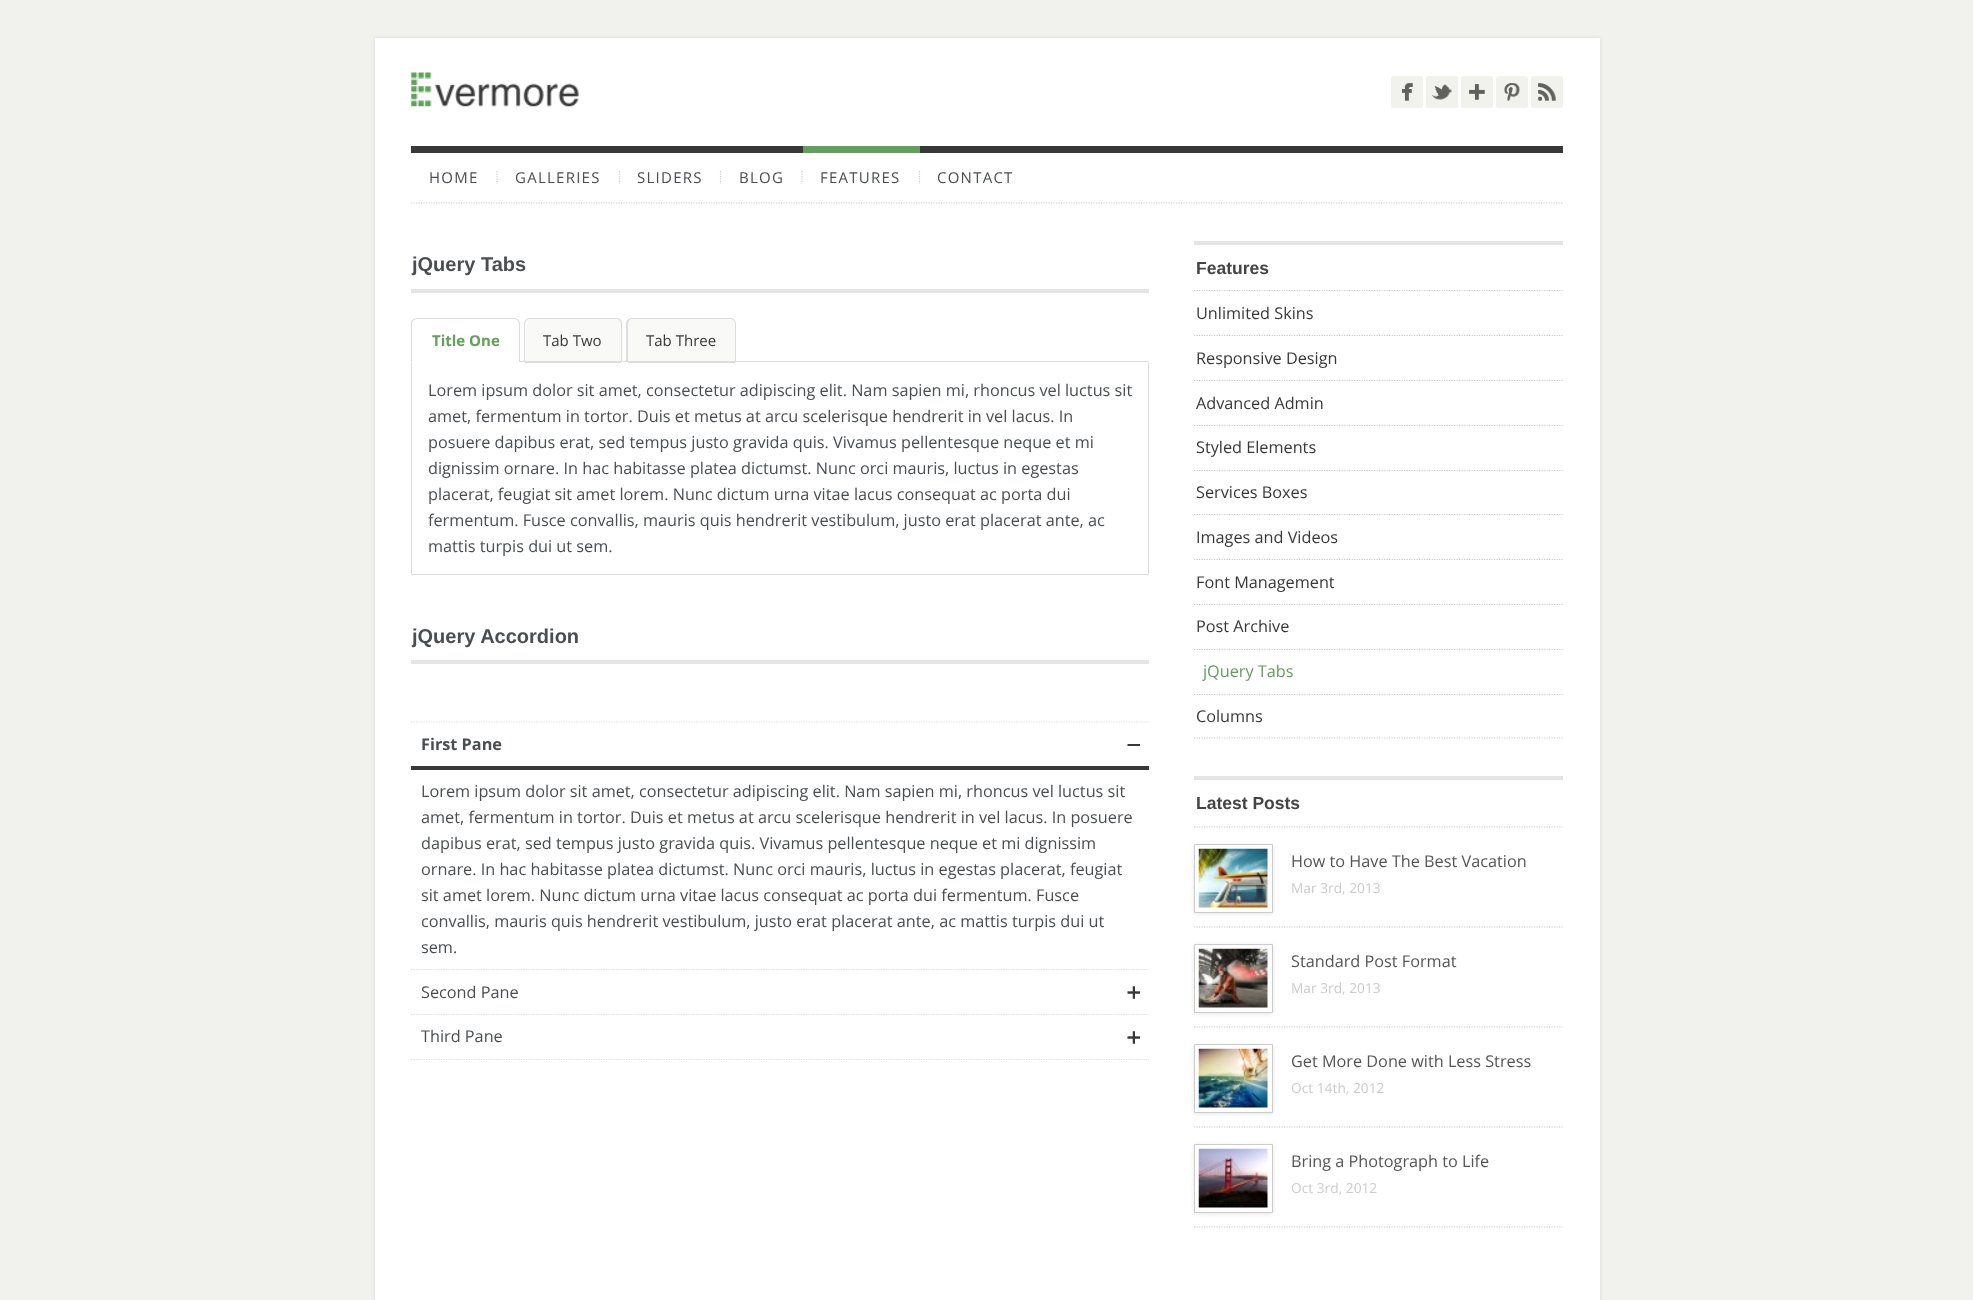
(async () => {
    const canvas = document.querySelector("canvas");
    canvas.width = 1973;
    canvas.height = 1300;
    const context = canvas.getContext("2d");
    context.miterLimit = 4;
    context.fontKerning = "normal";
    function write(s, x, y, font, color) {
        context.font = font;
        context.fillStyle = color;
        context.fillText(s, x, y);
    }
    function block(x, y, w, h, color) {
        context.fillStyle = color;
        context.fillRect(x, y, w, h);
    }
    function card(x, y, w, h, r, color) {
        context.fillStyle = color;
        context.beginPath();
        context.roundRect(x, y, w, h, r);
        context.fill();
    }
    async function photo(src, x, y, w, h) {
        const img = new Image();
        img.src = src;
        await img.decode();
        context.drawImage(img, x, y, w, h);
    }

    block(0, 0, 1973, 1300, "rgb(241, 241, 237)");
    context.fillStyle = "rgba(0, 0, 0, 0.1)";
    context.filter = "blur(2px)";
    context.beginPath();
    context.rect(375, 38, 1225, 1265);
    context.fill();
    context.filter = "none";
    block(375, 38, 1225, 1262, "rgb(255, 255, 255)");
    await photo("media/1.png", 411, 72, 168, 35);
    card(1391, 76, 32, 32, 2.5, "rgb(241, 241, 237)");
    await photo("media/2.png", 1402, 83, 11, 18);
    card(1426, 76, 32, 32, 2.5, "rgb(241, 241, 237)");
    await photo("media/3.png", 1432, 84, 20, 16);
    card(1461, 76, 32, 32, 2.5, "rgb(241, 241, 237)");
    await photo("media/4.png", 1469, 84, 16, 16);
    card(1496, 76, 32, 32, 2.5, "rgb(241, 241, 237)");
    await photo("media/5.png", 1504, 83, 16, 18);
    card(1531, 76, 32, 32, 2.5, "rgb(241, 241, 237)");
    await photo("media/6.png", 1537, 83, 19, 18);
    block(411, 146, 1152, 7, "rgb(56, 56, 56)");
    context.beginPath();
    context.moveTo(411, 203);
    context.lineTo(1562.5, 203);
    context.strokeStyle = "rgb(204, 204, 204)";
    context.lineWidth = 1.2;
    context.setLineDash([1.25, 1.25]);
    context.stroke();
    context.beginPath();
    context.moveTo(497, 171);
    context.lineTo(497, 184);
    context.stroke();
    context.letterSpacing = "1.25px";
    write("HOME", 429, 183, "15px Open Sans", "rgb(74, 78, 81)");
    context.beginPath();
    context.moveTo(619.5, 171);
    context.lineTo(619.5, 184);
    context.stroke();
    write("GALLERIES", 515, 183, "15px Open Sans", "rgb(74, 78, 81)");
    context.beginPath();
    context.moveTo(720.5, 171);
    context.lineTo(720.5, 184);
    context.stroke();
    write("SLIDERS", 637, 183, "15px Open Sans", "rgb(74, 78, 81)");
    context.beginPath();
    context.moveTo(802, 171);
    context.lineTo(802, 184);
    context.stroke();
    write("BLOG", 739, 183, "15px Open Sans", "rgb(74, 78, 81)");
    block(803, 146, 117, 7, "rgb(99, 159, 92)");
    context.beginPath();
    context.moveTo(919.5, 171);
    context.lineTo(919.5, 184);
    context.stroke();
    write("FEATURES", 820, 183, "15px Open Sans", "rgb(74, 78, 81)");
    write("CONTACT", 937, 183, "15px Open Sans", "rgb(74, 78, 81)");
    block(411, 289, 738, 4, "rgb(228, 228, 226)");
    context.letterSpacing = "0px";
    write("jQuery Tabs", 412, 271, "bold 20px Liberation Sans", "rgb(74, 78, 81)");
    block(520, 361, 629, 1, "rgb(221, 221, 221)");
    context.beginPath();
    context.moveTo(418, 318);
    context.lineTo(514, 318);
    context.bezierCurveTo(517, 318, 520, 320, 520, 324);
    context.lineTo(520, 362);
    context.lineTo(411, 362);
    context.lineTo(411, 324);
    context.bezierCurveTo(411, 320, 414, 318, 418, 318);
    context.closePath();
    context.moveTo(418, 319);
    context.lineTo(514, 319);
    context.bezierCurveTo(517, 319, 519, 321, 519, 324);
    context.lineTo(519, 362);
    context.lineTo(412, 362);
    context.lineTo(412, 324);
    context.bezierCurveTo(412, 321, 415, 319, 418, 319);
    context.closePath();
    context.fill("evenodd");
    write("Title One", 432, 346, "bold 15px Open Sans", "rgb(99, 159, 92)");
    context.fillStyle = "rgb(249, 249, 247)";
    context.beginPath();
    context.roundRect(524, 318, 99, 45, [6, 6, 0, 0]);
    context.fill();
    block(525, 361, 96, 2, "rgb(221, 221, 221)");
    context.beginPath();
    context.moveTo(530, 318);
    context.lineTo(616, 318);
    context.bezierCurveTo(620, 318, 622, 320, 622, 324);
    context.lineTo(622, 362);
    context.lineTo(524, 362);
    context.lineTo(524, 324);
    context.bezierCurveTo(524, 320, 527, 318, 530, 318);
    context.closePath();
    context.moveTo(530, 319);
    context.lineTo(616, 319);
    context.bezierCurveTo(619, 319, 621, 321, 621, 324);
    context.lineTo(621, 362);
    context.lineTo(525, 362);
    context.lineTo(525, 324);
    context.bezierCurveTo(525, 321, 527, 319, 530, 319);
    context.closePath();
    context.fill("evenodd");
    write("Tab Two", 543, 346, "15px Open Sans", "rgb(56, 56, 56)");
    context.fillStyle = "rgb(249, 249, 247)";
    context.beginPath();
    context.roundRect(626, 318, 110, 45, [6, 6, 0, 0]);
    context.fill();
    block(628, 361, 107, 2, "rgb(221, 221, 221)");
    context.beginPath();
    context.moveTo(632, 318);
    context.lineTo(730, 318);
    context.bezierCurveTo(733, 318, 736, 320, 736, 324);
    context.lineTo(736, 362);
    context.lineTo(626, 362);
    context.lineTo(626, 324);
    context.bezierCurveTo(626, 320, 629, 318, 632, 318);
    context.closePath();
    context.moveTo(632, 319);
    context.lineTo(730, 319);
    context.bezierCurveTo(733, 319, 735, 321, 735, 324);
    context.lineTo(735, 362);
    context.lineTo(628, 362);
    context.lineTo(628, 324);
    context.bezierCurveTo(628, 321, 630, 319, 632, 319);
    context.closePath();
    context.fill("evenodd");
    write("Tab Three", 646, 346, "15px Open Sans", "rgb(56, 56, 56)");
    block(1148, 363, 1, 212, "rgb(221, 221, 221)");
    block(411, 574, 738, 1, "rgb(221, 221, 221)");
    block(411, 363, 1, 212, "rgb(221, 221, 221)");
    write("Lorem ipsum dolor sit amet, consectetur adipiscing elit. Nam sapien mi, rhoncus vel luctus sit", 428, 396, "16.25px Open Sans", "rgb(74, 78, 81)");
    write("amet, fermentum in tortor. Duis et metus at arcu scelerisque hendrerit in vel lacus. In", 428, 422, "16.25px Open Sans", "rgb(74, 78, 81)");
    write("posuere dapibus erat, sed tempus justo gravida quis. Vivamus pellentesque neque et mi", 428, 448, "16.25px Open Sans", "rgb(74, 78, 81)");
    write("dignissim ornare. In hac habitasse platea dictumst. Nunc orci mauris, luctus in egestas", 428, 474, "16.25px Open Sans", "rgb(74, 78, 81)");
    write("placerat, feugiat sit amet lorem. Nunc dictum urna vitae lacus consequat ac porta dui", 428, 500, "16.25px Open Sans", "rgb(74, 78, 81)");
    write("fermentum. Fusce convallis, mauris quis hendrerit vestibulum, justo erat placerat ante, ac", 428, 526, "16.25px Open Sans", "rgb(74, 78, 81)");
    write("mattis turpis dui ut sem.", 428, 552, "16.25px Open Sans", "rgb(74, 78, 81)");
    block(411, 660, 738, 4, "rgb(228, 228, 226)");
    write("jQuery Accordion", 412, 643, "bold 20px Liberation Sans", "rgb(74, 78, 81)");
    context.beginPath();
    context.moveTo(411, 1059.5);
    context.lineTo(1149, 1059.5);
    context.strokeStyle = "rgb(221, 221, 221)";
    context.stroke();
    context.beginPath();
    context.moveTo(411, 722);
    context.lineTo(1149, 722);
    context.stroke();
    block(411, 766, 738, 4, "rgb(56, 56, 56)");
    write("First Pane", 421, 750, "bold 16.25px Open Sans", "rgb(74, 78, 81)");
    await photo("media/7.png", 1127, 744, 13, 2);
    write("Lorem ipsum dolor sit amet, consectetur adipiscing elit. Nam sapien mi, rhoncus vel luctus sit", 421, 797, "16.25px Open Sans", "rgb(74, 78, 81)");
    write("amet, fermentum in tortor. Duis et metus at arcu scelerisque hendrerit in vel lacus. In posuere", 421, 823, "16.25px Open Sans", "rgb(74, 78, 81)");
    write("dapibus erat, sed tempus justo gravida quis. Vivamus pellentesque neque et mi dignissim", 421, 849, "16.25px Open Sans", "rgb(74, 78, 81)");
    write("ornare. In hac habitasse platea dictumst. Nunc orci mauris, luctus in egestas placerat, feugiat", 421, 875, "16.25px Open Sans", "rgb(74, 78, 81)");
    write("sit amet lorem. Nunc dictum urna vitae lacus consequat ac porta dui fermentum. Fusce", 421, 901, "16.25px Open Sans", "rgb(74, 78, 81)");
    write("convallis, mauris quis hendrerit vestibulum, justo erat placerat ante, ac mattis turpis dui ut", 421, 927, "16.25px Open Sans", "rgb(74, 78, 81)");
    write("sem.", 421, 953, "16.25px Open Sans", "rgb(74, 78, 81)");
    context.beginPath();
    context.moveTo(411, 969.5);
    context.lineTo(1149, 969.5);
    context.stroke();
    write("Second Pane", 421, 998, "16.25px Open Sans", "rgb(74, 78, 81)");
    await photo("media/8.png", 1127, 986, 13, 13);
    context.beginPath();
    context.moveTo(411, 1014.5);
    context.lineTo(1149, 1014.5);
    context.stroke();
    write("Third Pane", 421, 1042, "16.25px Open Sans", "rgb(74, 78, 81)");
    await photo("media/8.png", 1127, 1031, 13, 13);
    block(1194, 241, 369, 4, "rgb(228, 228, 226)");
    context.beginPath();
    context.moveTo(1194, 290.5);
    context.lineTo(1562.5, 290.5);
    context.strokeStyle = "rgb(204, 204, 204)";
    context.stroke();
    write("Features", 1196, 274, "bold 17.5px Liberation Sans", "rgb(68, 68, 68)");
    context.beginPath();
    context.moveTo(1194, 335.5);
    context.lineTo(1562.5, 335.5);
    context.stroke();
    write("Unlimited Skins", 1196, 319, "16.25px Open Sans", "rgb(56, 56, 56)");
    context.beginPath();
    context.moveTo(1194, 380.5);
    context.lineTo(1562.5, 380.5);
    context.stroke();
    write("Responsive Design", 1196, 364, "16.25px Open Sans", "rgb(56, 56, 56)");
    context.beginPath();
    context.moveTo(1194, 425.5);
    context.lineTo(1562.5, 425.5);
    context.stroke();
    write("Advanced Admin", 1196, 409, "16.25px Open Sans", "rgb(56, 56, 56)");
    context.beginPath();
    context.moveTo(1194, 470.5);
    context.lineTo(1562.5, 470.5);
    context.stroke();
    write("Styled Elements", 1196, 453, "16.25px Open Sans", "rgb(56, 56, 56)");
    context.beginPath();
    context.moveTo(1194, 514.5);
    context.lineTo(1562.5, 514.5);
    context.stroke();
    write("Services Boxes", 1196, 498, "16.25px Open Sans", "rgb(56, 56, 56)");
    context.beginPath();
    context.moveTo(1194, 559.5);
    context.lineTo(1562.5, 559.5);
    context.stroke();
    write("Images and Videos", 1196, 543, "16.25px Open Sans", "rgb(56, 56, 56)");
    context.beginPath();
    context.moveTo(1194, 604.5);
    context.lineTo(1562.5, 604.5);
    context.stroke();
    write("Font Management", 1196, 588, "16.25px Open Sans", "rgb(56, 56, 56)");
    context.beginPath();
    context.moveTo(1194, 649.5);
    context.lineTo(1562.5, 649.5);
    context.stroke();
    write("Post Archive", 1196, 632, "16.25px Open Sans", "rgb(56, 56, 56)");
    context.beginPath();
    context.moveTo(1194, 694.5);
    context.lineTo(1562.5, 694.5);
    context.stroke();
    write("jQuery Tabs", 1203, 677, "16.25px Open Sans", "rgb(99, 159, 92)");
    context.beginPath();
    context.moveTo(1194, 738);
    context.lineTo(1562.5, 738);
    context.stroke();
    write("Columns", 1196, 722, "16.25px Open Sans", "rgb(56, 56, 56)");
    block(1194, 776, 369, 4, "rgb(228, 228, 226)");
    context.beginPath();
    context.moveTo(1194, 827);
    context.lineTo(1562.5, 827);
    context.stroke();
    write("Latest Posts", 1196, 809, "bold 17.5px Liberation Sans", "rgb(68, 68, 68)");
    context.beginPath();
    context.moveTo(1194, 927);
    context.lineTo(1562.5, 927);
    context.stroke();
    context.fillStyle = "rgba(0, 0, 0, 0.1)";
    context.filter = "blur(2px)";
    context.beginPath();
    context.rect(1194, 845, 79, 69);
    context.fill();
    context.filter = "none";
    context.fillStyle = "rgb(255, 255, 255)";
    context.beginPath();
    context.rect(1194.5, 844.5, 78, 68);
    context.fill();
    context.lineWidth = 1;
    context.setLineDash([]);
    context.stroke();
    await photo("media/9.png", 1198, 848, 70, 60);
    write("How to Have The Best Vacation", 1291, 867, "16.25px Open Sans", "rgb(85, 85, 85)");
    write("Mar 3rd, 2013", 1291, 893, "13.75px Open Sans", "rgb(204, 204, 204)");
    context.beginPath();
    context.moveTo(1194, 1027);
    context.lineTo(1562.5, 1027);
    context.lineWidth = 1.2;
    context.setLineDash([1.25, 1.25]);
    context.stroke();
    context.fillStyle = "rgba(0, 0, 0, 0.1)";
    context.filter = "blur(2px)";
    context.beginPath();
    context.rect(1194, 945, 79, 69);
    context.fill();
    context.filter = "none";
    context.fillStyle = "rgb(255, 255, 255)";
    context.beginPath();
    context.rect(1194.5, 944.5, 78, 68);
    context.fill();
    context.lineWidth = 1;
    context.setLineDash([]);
    context.stroke();
    await photo("media/10.png", 1198, 948, 70, 60);
    write("Standard Post Format", 1291, 967, "16.25px Open Sans", "rgb(85, 85, 85)");
    write("Mar 3rd, 2013", 1291, 993, "13.75px Open Sans", "rgb(204, 204, 204)");
    context.beginPath();
    context.moveTo(1194, 1127);
    context.lineTo(1562.5, 1127);
    context.lineWidth = 1.2;
    context.setLineDash([1.25, 1.25]);
    context.stroke();
    context.fillStyle = "rgba(0, 0, 0, 0.1)";
    context.filter = "blur(2px)";
    context.beginPath();
    context.rect(1194, 1045, 79, 69);
    context.fill();
    context.filter = "none";
    context.fillStyle = "rgb(255, 255, 255)";
    context.beginPath();
    context.rect(1194.5, 1044.5, 78, 68);
    context.fill();
    context.lineWidth = 1;
    context.setLineDash([]);
    context.stroke();
    await photo("media/11.png", 1198, 1048, 70, 60);
    write("Get More Done with Less Stress", 1291, 1067, "16.25px Open Sans", "rgb(85, 85, 85)");
    write("Oct 14th, 2012", 1291, 1093, "13.75px Open Sans", "rgb(204, 204, 204)");
    context.beginPath();
    context.moveTo(1194, 1227);
    context.lineTo(1562.5, 1227);
    context.lineWidth = 1.2;
    context.setLineDash([1.25, 1.25]);
    context.stroke();
    context.fillStyle = "rgba(0, 0, 0, 0.1)";
    context.filter = "blur(2px)";
    context.beginPath();
    context.rect(1194, 1145, 79, 69);
    context.fill();
    context.filter = "none";
    context.fillStyle = "rgb(255, 255, 255)";
    context.beginPath();
    context.rect(1194.5, 1144.5, 78, 68);
    context.fill();
    context.lineWidth = 1;
    context.setLineDash([]);
    context.stroke();
    await photo("media/12.png", 1198, 1148, 70, 60);
    write("Bring a Photograph to Life", 1291, 1167, "16.25px Open Sans", "rgb(85, 85, 85)");
    write("Oct 3rd, 2012", 1291, 1193, "13.75px Open Sans", "rgb(204, 204, 204)");
})();
